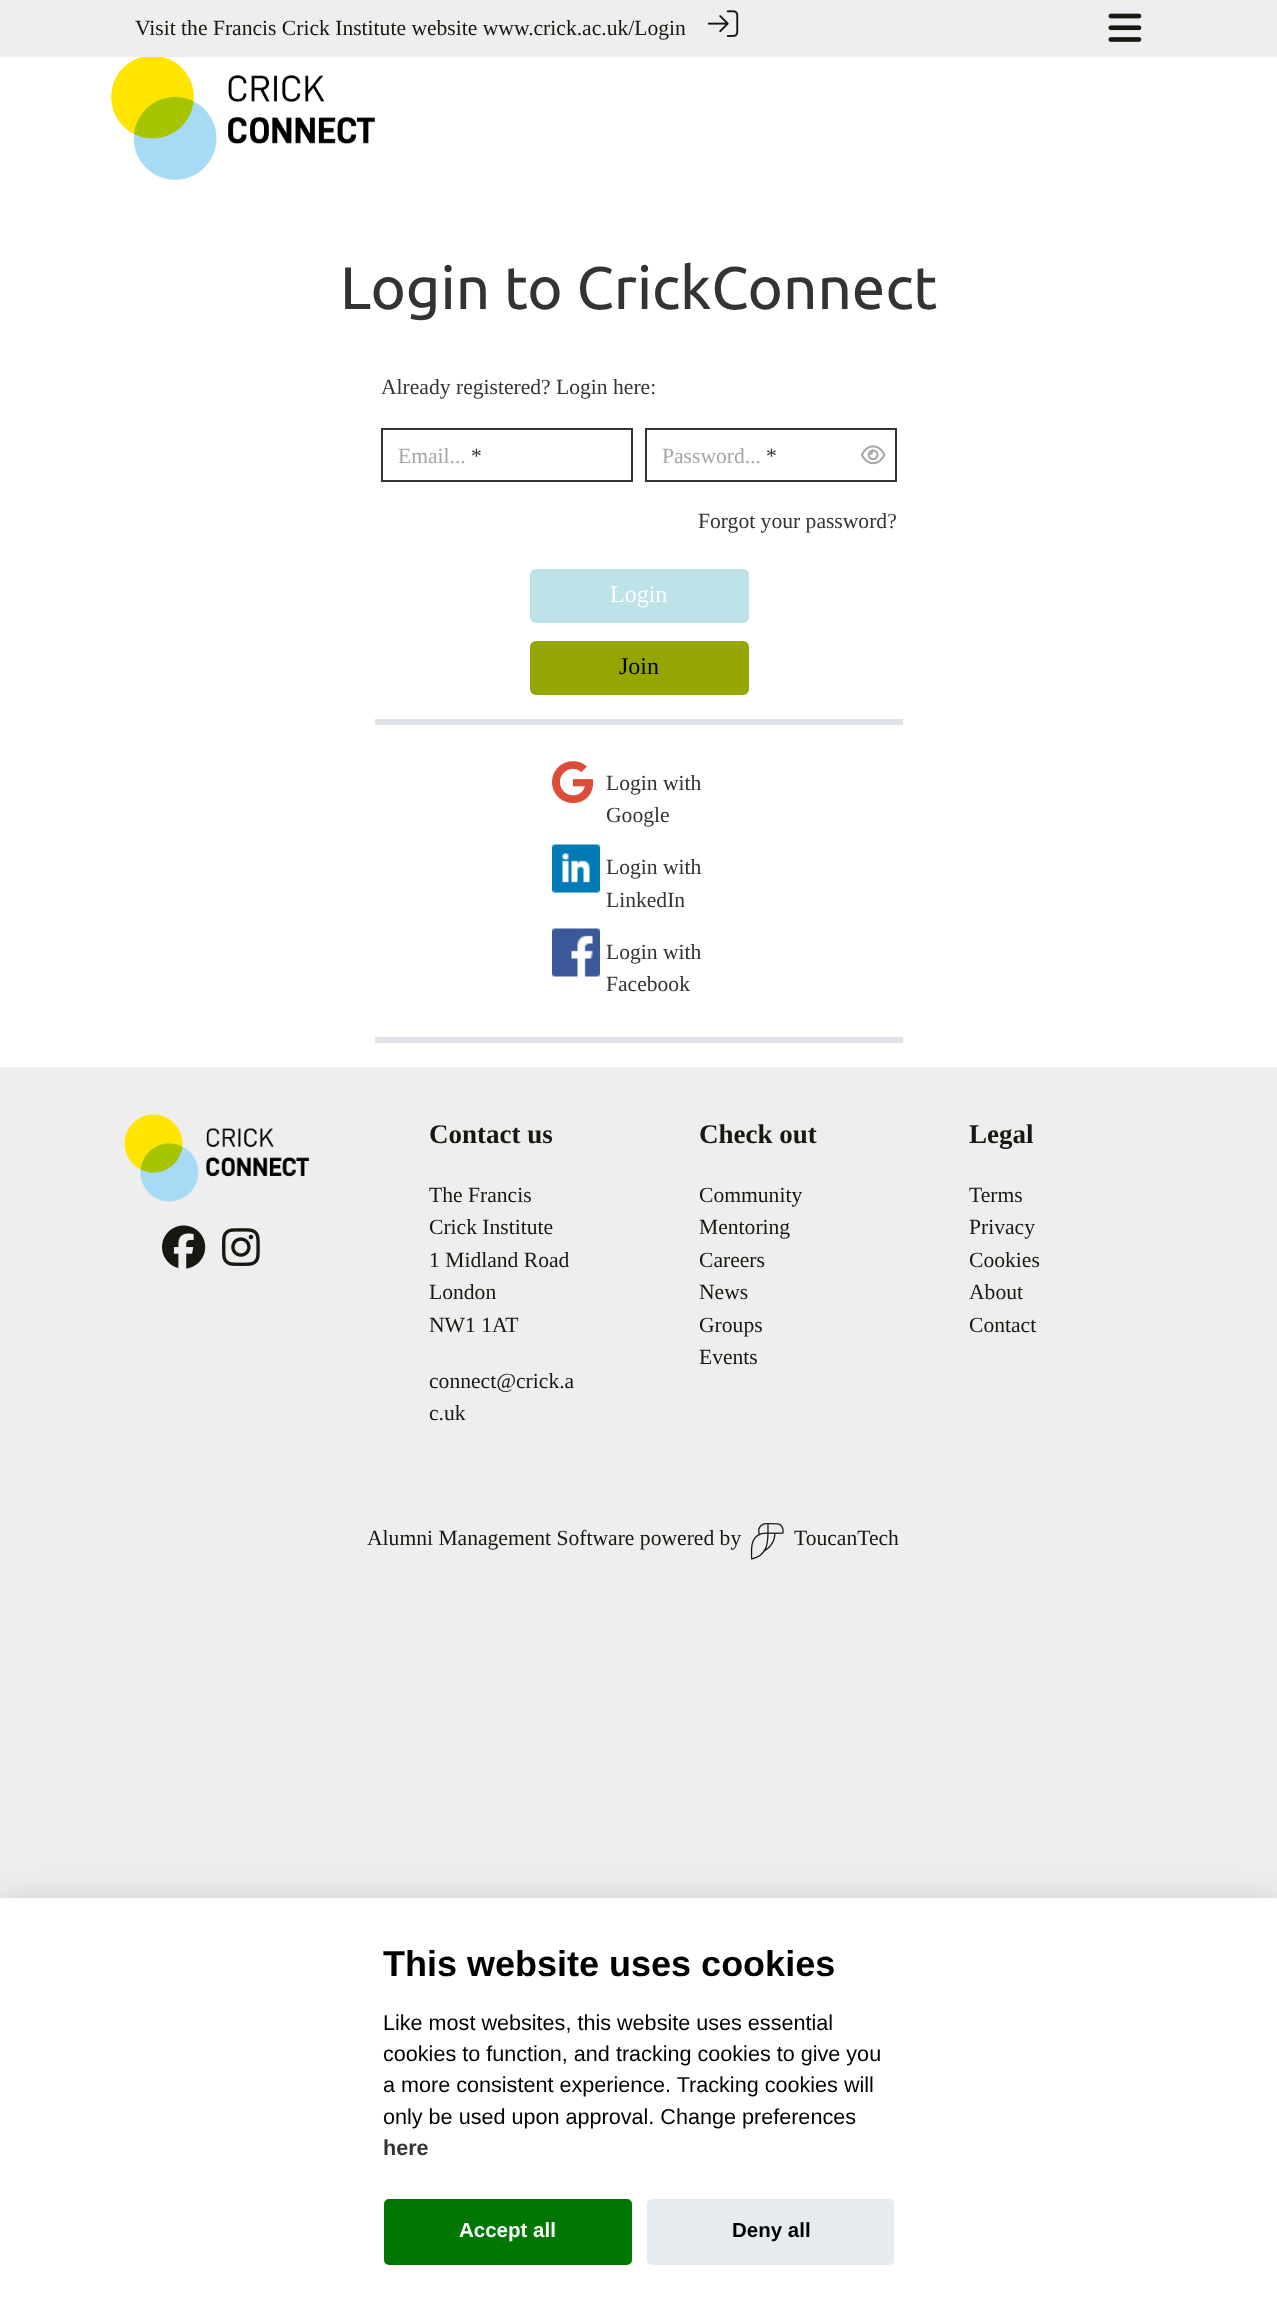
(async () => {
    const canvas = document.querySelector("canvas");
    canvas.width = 1277;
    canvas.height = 2322;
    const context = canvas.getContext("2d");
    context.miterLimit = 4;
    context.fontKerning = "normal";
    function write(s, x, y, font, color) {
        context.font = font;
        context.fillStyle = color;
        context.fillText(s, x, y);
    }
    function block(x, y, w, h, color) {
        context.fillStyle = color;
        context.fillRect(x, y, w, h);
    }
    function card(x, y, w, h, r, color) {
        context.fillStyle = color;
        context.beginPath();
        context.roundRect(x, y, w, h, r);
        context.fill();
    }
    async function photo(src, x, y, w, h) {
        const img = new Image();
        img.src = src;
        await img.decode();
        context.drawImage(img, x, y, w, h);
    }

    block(0, 0, 1277, 2322, "rgb(238, 238, 238)");
    write("Visit the Francis Crick Institute website www.crick.ac.uk/Login", 135, 35, "21.6px Liberation Serif", "rgb(23, 25, 17)");
    await photo("media/1.png", 707, 10, 32, 27);
    await photo("media/2.png", 1108, 13, 34, 29);
    block(0, 57, 1277, 1010, "rgb(255, 255, 255)");
    await photo("media/3.png", 111, 57, 264, 123);
    write("Login to CrickConnect", 340, 309, "60px Ubuntu", "rgb(51, 51, 51)");
    write("Already registered? Login here:", 381, 394, "21.6px Liberation Serif", "rgb(51, 51, 51)");
    context.strokeStyle = "rgb(51, 51, 51)";
    context.lineWidth = 2;
    context.strokeRect(382, 429, 250, 52);
    write("Email...", 398, 463, "21.6px Liberation Serif", "rgb(166, 166, 166)");
    write("*", 471, 463, "21.6px Liberation Serif", "rgb(51, 51, 51)");
    context.strokeRect(646, 429, 250, 52);
    write("Password...", 662, 463, "21.6px Liberation Serif", "rgb(166, 166, 166)");
    write("*", 766, 463, "21.6px Liberation Serif", "rgb(51, 51, 51)");
    await photo("media/4.png", 861, 445, 25, 20);
    write("Forgot your password?", 698, 528, "21.6px Liberation Serif", "rgb(51, 51, 51)");
    card(530, 569, 219, 54, 6, "rgb(189, 226, 232)");
    write("Login", 610, 602, "24px Liberation Serif", "rgb(255, 255, 255)");
    card(530, 641, 219, 54, 6, "rgb(149, 165, 2)");
    write("Join", 619, 674, "24px Liberation Serif", "rgb(0, 0, 0)");
    block(375, 719, 528, 6, "rgb(222, 226, 230)");
    await photo("media/5.png", 552, 761, 42, 42);
    write("Login with", 606, 790, "21.6px Liberation Serif", "rgb(51, 51, 51)");
    write("Google", 606, 822, "21.6px Liberation Serif", "rgb(51, 51, 51)");
    await photo("media/6.png", 552, 844, 48, 49);
    write("Login with", 606, 874, "21.6px Liberation Serif", "rgb(51, 51, 51)");
    write("LinkedIn", 606, 907, "21.6px Liberation Serif", "rgb(51, 51, 51)");
    await photo("media/7.png", 552, 928, 48, 49);
    write("Login with", 606, 959, "21.6px Liberation Serif", "rgb(51, 51, 51)");
    write("Facebook", 606, 991, "21.6px Liberation Serif", "rgb(51, 51, 51)");
    block(375, 1037, 528, 6, "rgb(222, 226, 230)");
    await photo("media/8.png", 124, 1114, 185, 88);
    await photo("media/9.png", 162, 1225, 44, 44);
    await photo("media/10.png", 222, 1228, 38, 38);
    write("Contact us", 429, 1143, "bold 27px Liberation Serif", "rgb(23, 25, 17)");
    write("The Francis", 429, 1202, "21.6px Liberation Serif", "rgb(23, 25, 17)");
    write("Crick Institute", 429, 1234, "21.6px Liberation Serif", "rgb(23, 25, 17)");
    write("1 Midland Road", 429, 1267, "21.6px Liberation Serif", "rgb(23, 25, 17)");
    write("London", 429, 1299, "21.6px Liberation Serif", "rgb(23, 25, 17)");
    write("NW1 1AT", 429, 1332, "21.6px Liberation Serif", "rgb(23, 25, 17)");
    write("connect@crick.a", 429, 1388, "21.6px Liberation Serif", "rgb(23, 25, 17)");
    write("c.uk", 429, 1420, "21.6px Liberation Serif", "rgb(23, 25, 17)");
    write("Check out", 699, 1143, "bold 27px Liberation Serif", "rgb(23, 25, 17)");
    write("Community", 699, 1202, "21.6px Liberation Serif", "rgb(23, 25, 17)");
    write("Mentoring", 699, 1234, "21.6px Liberation Serif", "rgb(23, 25, 17)");
    write("Careers", 699, 1267, "21.6px Liberation Serif", "rgb(23, 25, 17)");
    write("News", 699, 1299, "21.6px Liberation Serif", "rgb(23, 25, 17)");
    write("Groups", 699, 1332, "21.6px Liberation Serif", "rgb(23, 25, 17)");
    write("Events", 699, 1364, "21.6px Liberation Serif", "rgb(23, 25, 17)");
    write("Legal", 969, 1143, "bold 27px Liberation Serif", "rgb(23, 25, 17)");
    write("Terms", 969, 1202, "21.6px Liberation Serif", "rgb(23, 25, 17)");
    write("Privacy", 969, 1234, "21.6px Liberation Serif", "rgb(23, 25, 17)");
    write("Cookies", 969, 1267, "21.6px Liberation Serif", "rgb(23, 25, 17)");
    write("About", 969, 1299, "21.6px Liberation Serif", "rgb(23, 25, 17)");
    write("Contact", 969, 1332, "21.6px Liberation Serif", "rgb(23, 25, 17)");
    write("Alumni Management Software powered by", 367, 1545, "21.6px Liberation Serif", "rgb(23, 25, 17)");
    await photo("media/11.png", 750, 1523, 34, 37);
    write("ToucanTech", 794, 1545, "21.6px Liberation Serif", "rgb(23, 25, 17)");
    context.fillStyle = "rgba(2, 2, 3, 0.28)";
    context.filter = "blur(22.5px)";
    context.beginPath();
    context.rect(0, 1913, 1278, 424);
    context.fill();
    context.filter = "none";
    block(0, 1898, 1277, 424, "rgb(255, 255, 255)");
    write("This website uses cookies", 383, 1976, "bold 36px Liberation Sans", "rgb(0, 0, 0)");
    write("Like most websites, this website uses essential", 383, 2030, "21.6px Liberation Sans", "rgb(0, 0, 0)");
    write("cookies to function, and tracking cookies to give you", 383, 2061, "21.6px Liberation Sans", "rgb(0, 0, 0)");
    write("a more consistent experience. Tracking cookies will", 383, 2092, "21.6px Liberation Sans", "rgb(0, 0, 0)");
    write("only be used upon approval. Change preferences", 383, 2124, "21.6px Liberation Sans", "rgb(0, 0, 0)");
    write("here", 383, 2155, "bold 21.6px Liberation Sans", "rgb(51, 51, 51)");
    card(384, 2199, 248, 66, 5, "rgb(0, 119, 0)");
    write("Accept all", 459, 2237, "bold 20.5px Liberation Sans", "rgb(255, 255, 255)");
    card(647, 2199, 247, 66, 5, "rgb(229, 235, 239)");
    write("Deny all", 732, 2237, "bold 20.5px Liberation Sans", "rgb(0, 0, 0)");
})();
